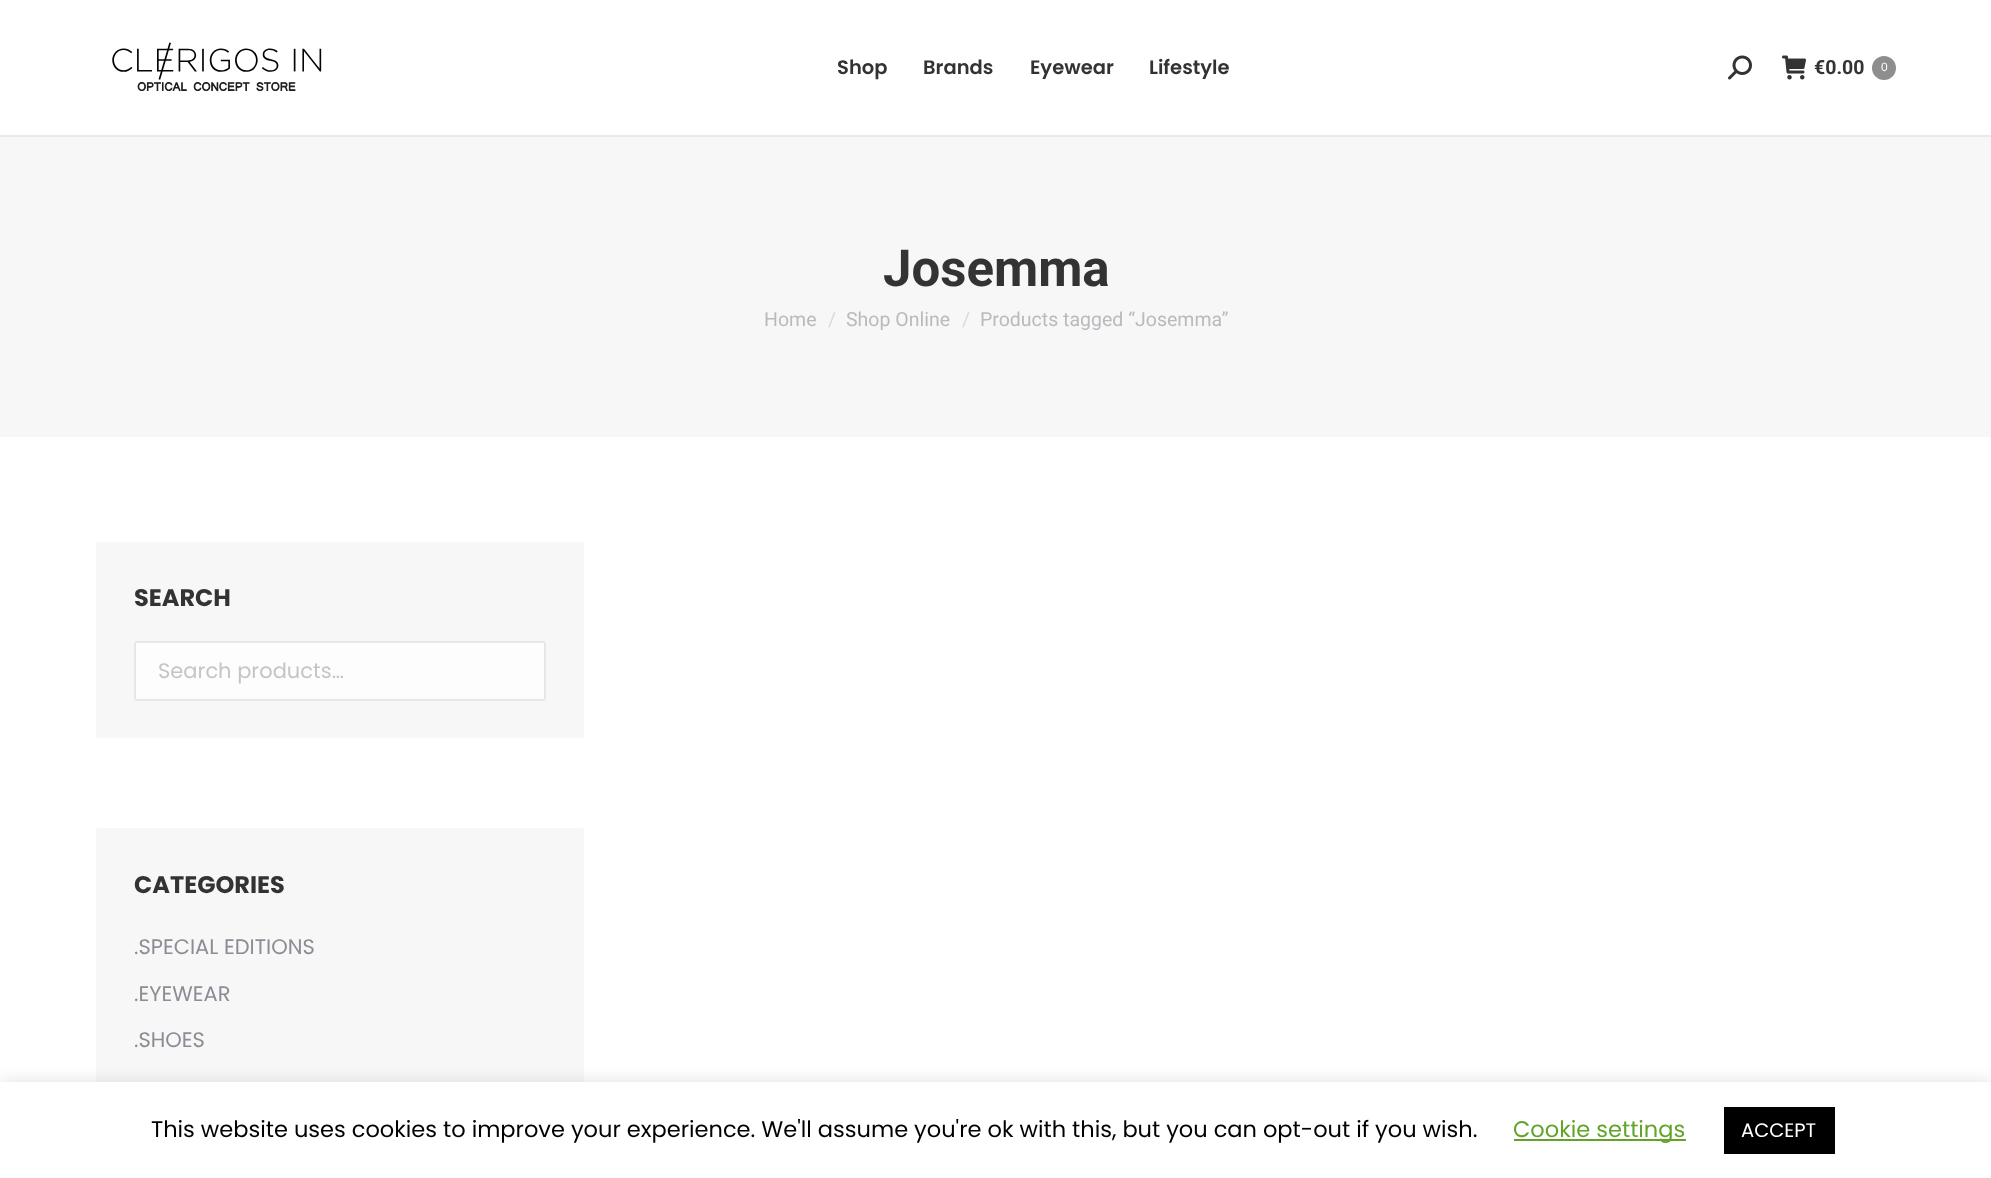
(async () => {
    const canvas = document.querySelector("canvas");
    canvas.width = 1991;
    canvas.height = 1178;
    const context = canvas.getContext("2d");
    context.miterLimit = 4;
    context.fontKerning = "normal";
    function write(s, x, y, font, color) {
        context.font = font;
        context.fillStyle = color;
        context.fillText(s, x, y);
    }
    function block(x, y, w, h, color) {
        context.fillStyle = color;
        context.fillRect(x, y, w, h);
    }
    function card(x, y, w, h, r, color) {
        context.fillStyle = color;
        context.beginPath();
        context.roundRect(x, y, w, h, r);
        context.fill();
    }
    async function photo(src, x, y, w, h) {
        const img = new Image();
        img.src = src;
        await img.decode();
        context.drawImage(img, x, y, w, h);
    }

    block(0, 0, 1991, 1178, "rgb(255, 255, 255)");
    block(0, 135, 1991, 2, "rgb(233, 233, 233)");
    await photo("media/1.png", 112, 42, 210, 50);
    write("Shop", 837, 74, "600 19.5px Poppins", "rgb(51, 51, 51)");
    write("Brands", 923, 74, "600 19.5px Poppins", "rgb(51, 51, 51)");
    write("Eyewear", 1030, 74, "600 19.5px Poppins", "rgb(51, 51, 51)");
    write("Lifestyle", 1149, 74, "600 19.5px Poppins", "rgb(51, 51, 51)");
    await photo("media/2.png", 1728, 55, 24, 25);
    await photo("media/3.png", 1782, 55, 24, 25);
    write("€0.00", 1814, 74, "bold 19.5px Roboto", "rgb(51, 51, 51)");
    context.fillStyle = "rgb(142, 142, 142)";
    context.beginPath();
    context.arc(1884, 68, 12, 0, Math.PI * 2);
    context.fill();
    write("0", 1881, 71, "12px Liberation Sans", "rgb(255, 255, 255)");
    block(0, 137, 1991, 300, "rgb(247, 247, 247)");
    write("Josemma", 883, 286, "bold 51px Roboto", "rgb(51, 51, 51)");
    write("Home", 764, 326, "19.5px Roboto", "rgb(183, 186, 190)");
    write("/", 828, 326, "19.5px Roboto", "rgb(215, 217, 219)");
    write("Shop Online", 846, 326, "19.5px Roboto", "rgb(183, 186, 190)");
    write("/", 962, 326, "19.5px Roboto", "rgb(215, 217, 219)");
    write("Products tagged “Josemma”", 980, 326, "19.5px Roboto", "rgb(183, 186, 190)");
    card(96, 542, 488, 196, 3, "rgb(247, 247, 248)");
    write("SEARCH", 134, 606, "bold 24px Poppins", "rgb(51, 51, 51)");
    card(134, 641, 412, 60, 3, "rgb(253, 253, 253)");
    context.beginPath();
    context.roundRect(135, 642, 410, 58, 2);
    context.strokeStyle = "rgba(51, 51, 51, 0.11)";
    context.lineWidth = 2;
    context.stroke();
    write("Search products…", 158, 678, "21px Poppins", "rgb(196, 197, 201)");
    card(96, 828, 488, 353, 3, "rgb(247, 247, 248)");
    write("CATEGORIES", 134, 893, "bold 24px Poppins", "rgb(51, 51, 51)");
    write(".SPECIAL EDITIONS", 134, 954, "21px Poppins", "rgb(139, 141, 148)");
    write(".EYEWEAR", 134, 1001, "21px Poppins", "rgb(139, 141, 148)");
    write(".SHOES", 134, 1047, "21px Poppins", "rgb(139, 141, 148)");
    context.fillStyle = "rgba(172, 171, 171, 0.3)";
    context.filter = "blur(7.5px)";
    context.beginPath();
    context.rect(0, 1080, 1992, 98);
    context.fill();
    context.filter = "none";
    block(0, 1082, 1991, 96, "rgb(255, 255, 255)");
    write("This website uses cookies to improve your experience. We'll assume you're ok with this, but you can opt-out if you wish.", 151, 1137, "22.5px Poppins", "rgb(0, 0, 0)");
    block(1514, 1139, 172, 2, "rgb(98, 163, 41)");
    write("Cookie settings", 1513, 1137, "22.5px Poppins", "rgb(98, 163, 41)");
    block(1724, 1107, 111, 47, "rgb(0, 0, 0)");
    write("ACCEPT", 1741, 1137, "19.5px Poppins", "rgb(255, 255, 255)");
})();
